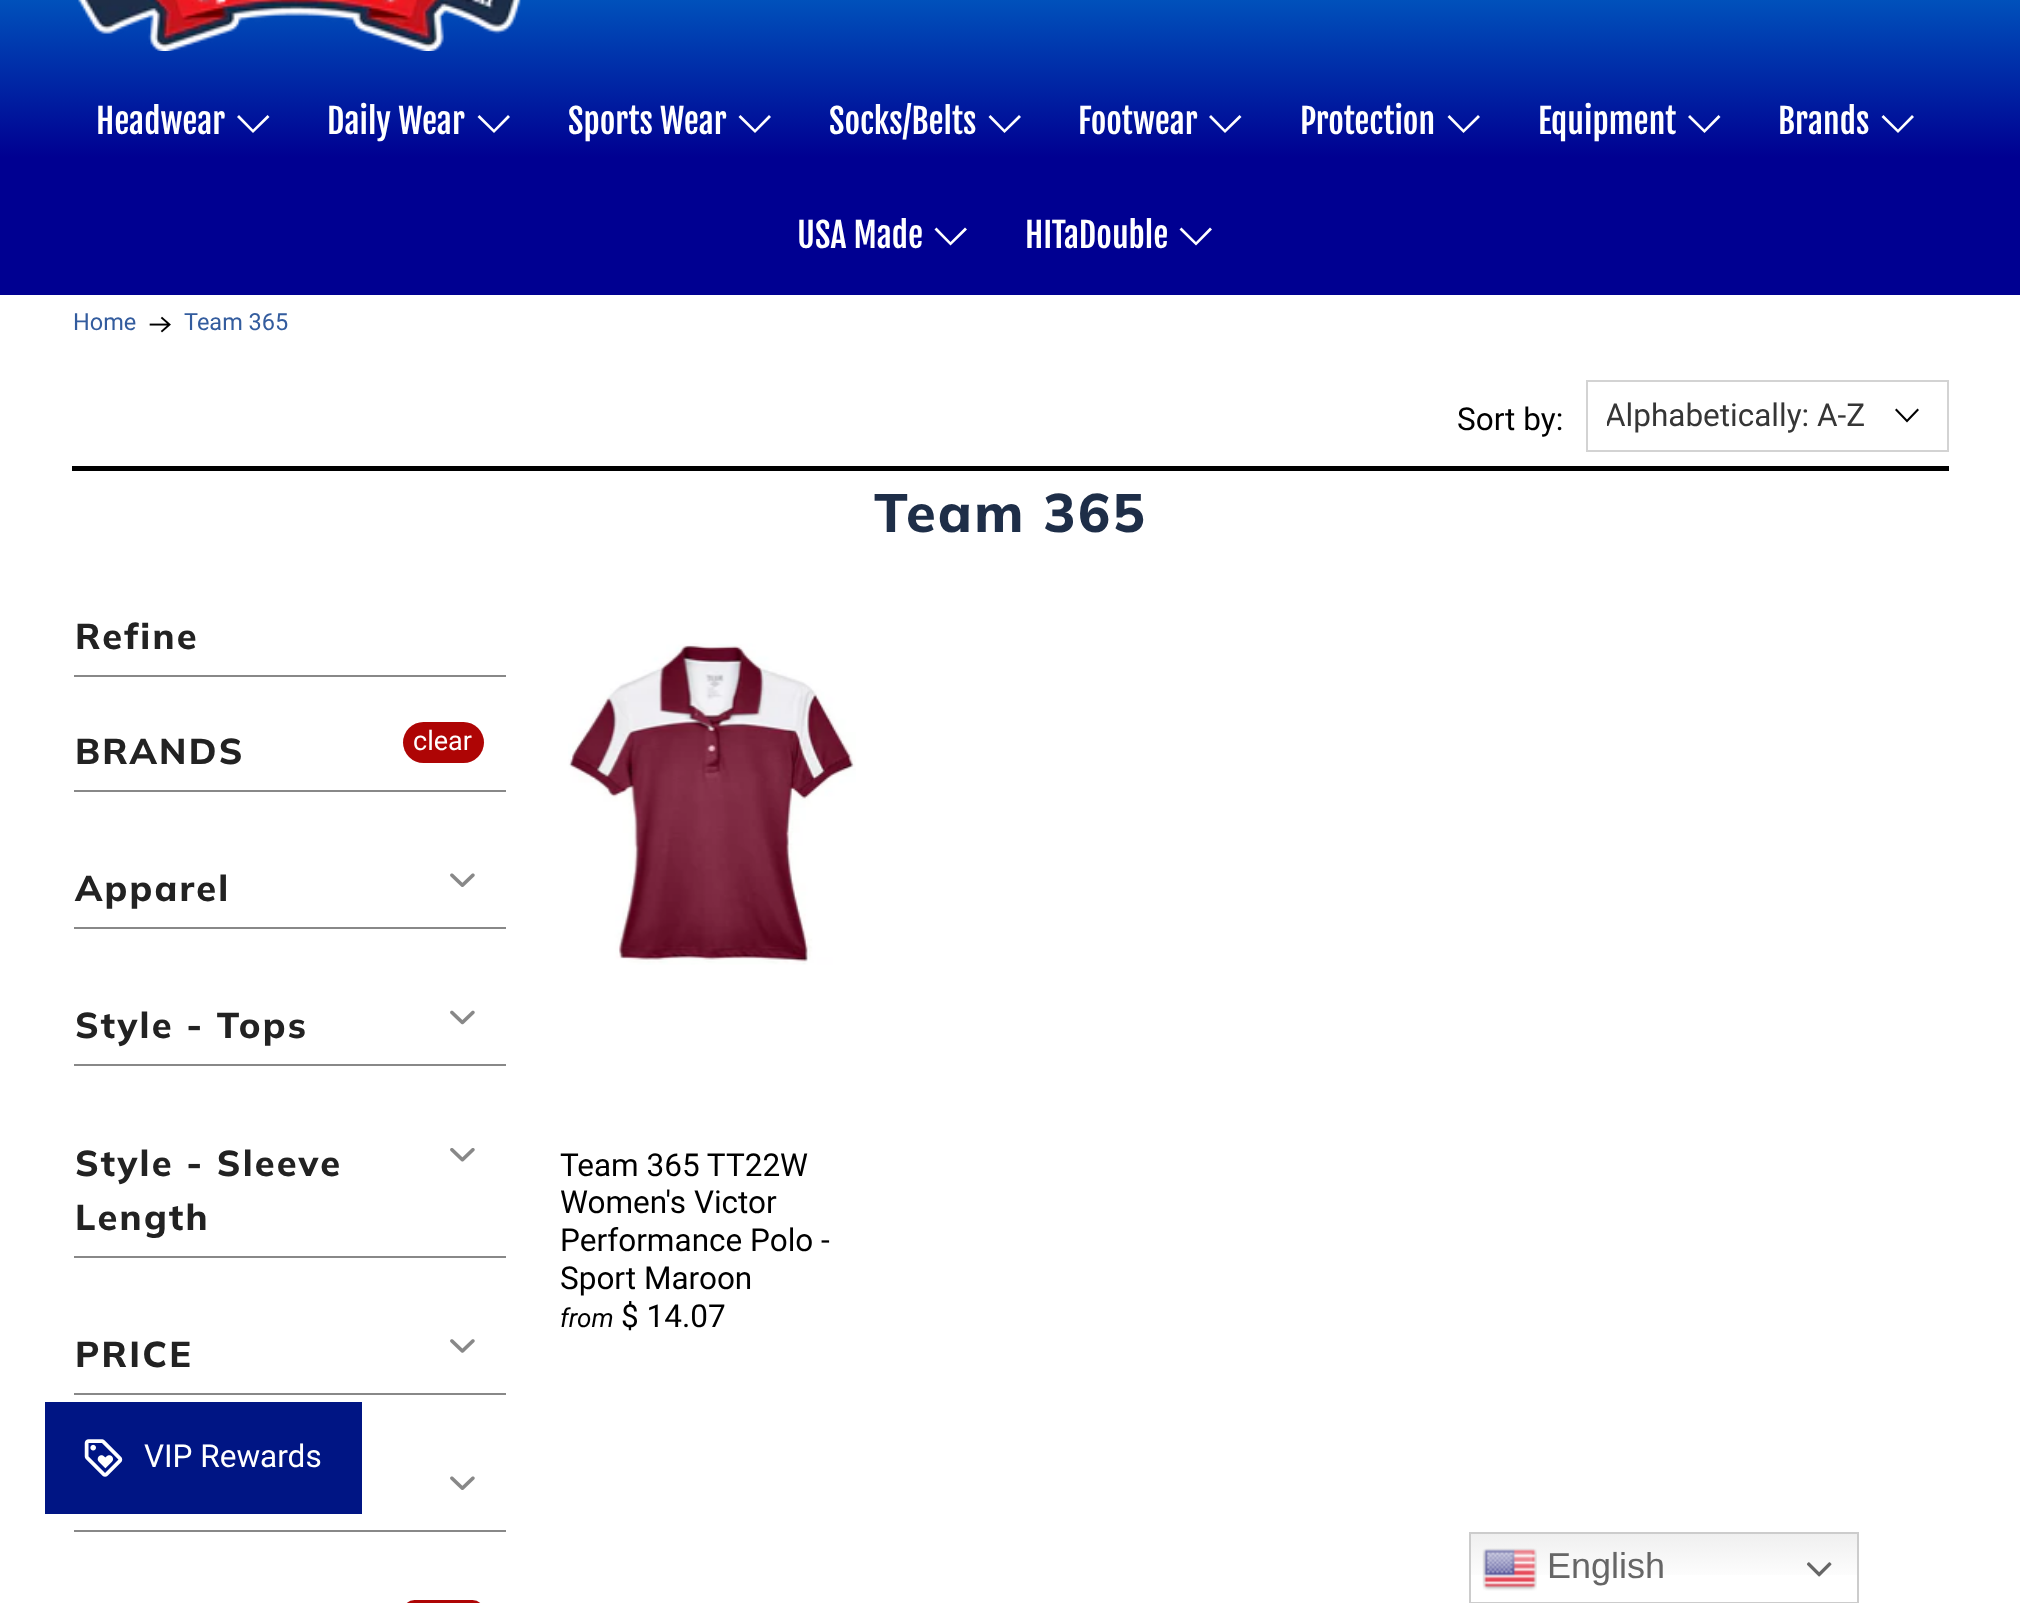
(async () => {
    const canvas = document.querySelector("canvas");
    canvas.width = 2020;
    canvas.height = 1603;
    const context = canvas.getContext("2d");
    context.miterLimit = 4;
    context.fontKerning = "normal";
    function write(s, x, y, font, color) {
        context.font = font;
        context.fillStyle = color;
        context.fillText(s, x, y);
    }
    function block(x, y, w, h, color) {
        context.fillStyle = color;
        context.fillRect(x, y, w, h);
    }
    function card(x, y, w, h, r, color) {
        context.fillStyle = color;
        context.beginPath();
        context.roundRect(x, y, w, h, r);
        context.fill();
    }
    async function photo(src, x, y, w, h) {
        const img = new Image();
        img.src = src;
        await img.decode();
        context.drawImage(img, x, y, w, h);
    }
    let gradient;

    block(0, 0, 2020, 1603, "rgb(255, 255, 255)");
    gradient = context.createLinearGradient(1010, 295, 1010, -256);
    gradient.addColorStop(0.25, "rgb(0, 0, 145)");
    gradient.addColorStop(1, "rgb(0, 212, 255)");
    context.fillStyle = gradient;
    context.fillRect(0, 0, 2020, 295);
    await photo("media/1.png", 78, 0, 443, 51);
    write("Headwear", 96, 134, "33.75px Fjalla One", "rgb(255, 255, 255)");
    context.beginPath();
    context.moveTo(253, 133);
    context.lineTo(237, 117);
    context.lineTo(239, 115);
    context.lineTo(253, 129.5);
    context.lineTo(267.5, 115);
    context.lineTo(269.5, 117);
    context.closePath();
    context.fill();
    write("Daily Wear", 327, 134, "33.75px Fjalla One", "rgb(255, 255, 255)");
    context.beginPath();
    context.moveTo(494, 133);
    context.lineTo(477.5, 117);
    context.lineTo(479.5, 115);
    context.lineTo(494, 129.5);
    context.lineTo(508, 115);
    context.lineTo(510, 117);
    context.closePath();
    context.fill();
    write("Sports Wear", 568, 134, "33.75px Fjalla One", "rgb(255, 255, 255)");
    context.beginPath();
    context.moveTo(755, 133);
    context.lineTo(738.5, 117);
    context.lineTo(740.5, 115);
    context.lineTo(755, 129.5);
    context.lineTo(769, 115);
    context.lineTo(771, 117);
    context.closePath();
    context.fill();
    write("Socks/Belts", 829, 134, "33.75px Fjalla One", "rgb(255, 255, 255)");
    context.beginPath();
    context.moveTo(1004.5, 133);
    context.lineTo(988.5, 117);
    context.lineTo(990.5, 115);
    context.lineTo(1004.5, 129.5);
    context.lineTo(1019, 115);
    context.lineTo(1021, 117);
    context.closePath();
    context.fill();
    write("Footwear", 1078, 134, "33.75px Fjalla One", "rgb(255, 255, 255)");
    context.beginPath();
    context.moveTo(1225, 133);
    context.lineTo(1209, 117);
    context.lineTo(1211, 115);
    context.lineTo(1225, 129.5);
    context.lineTo(1239.5, 115);
    context.lineTo(1241.5, 117);
    context.closePath();
    context.fill();
    write("Protection", 1300, 134, "33.75px Fjalla One", "rgb(255, 255, 255)");
    context.beginPath();
    context.moveTo(1463.5, 133);
    context.lineTo(1447.5, 117);
    context.lineTo(1449.5, 115);
    context.lineTo(1463.5, 129.5);
    context.lineTo(1478, 115);
    context.lineTo(1480, 117);
    context.closePath();
    context.fill();
    write("Equipment", 1538, 134, "33.75px Fjalla One", "rgb(255, 255, 255)");
    context.beginPath();
    context.moveTo(1704.5, 133);
    context.lineTo(1688, 117);
    context.lineTo(1690, 115);
    context.lineTo(1704.5, 129.5);
    context.lineTo(1718.5, 115);
    context.lineTo(1720.5, 117);
    context.closePath();
    context.fill();
    write("Brands", 1778, 134, "33.75px Fjalla One", "rgb(255, 255, 255)");
    context.beginPath();
    context.moveTo(1898, 133);
    context.lineTo(1881.5, 117);
    context.lineTo(1883.5, 115);
    context.lineTo(1898, 129.5);
    context.lineTo(1912, 115);
    context.lineTo(1914, 117);
    context.closePath();
    context.fill();
    write("USA Made", 797, 248, "33.75px Fjalla One", "rgb(255, 255, 255)");
    context.beginPath();
    context.moveTo(950.5, 245.5);
    context.lineTo(934.5, 229.5);
    context.lineTo(936.5, 227.5);
    context.lineTo(950.5, 242);
    context.lineTo(965, 227.5);
    context.lineTo(967, 229.5);
    context.closePath();
    context.fill();
    write("HITaDouble", 1025, 248, "33.75px Fjalla One", "rgb(255, 255, 255)");
    context.beginPath();
    context.moveTo(1196, 245.5);
    context.lineTo(1179.5, 229.5);
    context.lineTo(1181.5, 227.5);
    context.lineTo(1196, 242);
    context.lineTo(1210, 227.5);
    context.lineTo(1212, 229.5);
    context.closePath();
    context.fill();
    write("Home", 73, 330, "23.5px Roboto", "rgb(51, 92, 158)");
    await photo("media/2.png", 149, 316, 22, 17);
    write("Team 365", 184, 330, "23.5px Roboto", "rgb(51, 92, 158)");
    write("Sort by:", 1457, 430, "31.5px Roboto", "rgb(0, 0, 0)");
    context.strokeStyle = "rgb(211, 211, 211)";
    context.lineWidth = 2;
    context.strokeRect(1587, 381, 361, 70);
    context.save();
    context.beginPath();
    context.rect(1607, 392, 261, 47);
    context.clip();
    write("Alphabetically: A-Z", 1605, 426, "31.5px Roboto", "rgb(54, 54, 54)");
    context.restore();
    context.beginPath();
    context.moveTo(1907, 422.5);
    context.lineTo(1895, 410);
    context.lineTo(1896.5, 408.5);
    context.lineTo(1907, 419.5);
    context.lineTo(1917.5, 408.5);
    context.lineTo(1919, 410);
    context.closePath();
    context.fill();
    block(72, 466, 1877, 5, "rgb(0, 0, 0)");
    context.letterSpacing = "2.25px";
    write("Team 365", 874, 532, "800 54px Muli", "rgb(30, 46, 72)");
    block(74, 675, 432, 2, "rgb(136, 136, 136)");
    write("Refine", 75, 649, "800 36px Muli", "rgb(34, 34, 34)");
    block(74, 790, 432, 2, "rgb(136, 136, 136)");
    write("BRANDS", 75, 764, "800 36px Muli", "rgb(34, 34, 34)");
    card(403, 722, 81, 41, 20.5, "rgb(174, 5, 5)");
    context.letterSpacing = "0px";
    write("clear", 413, 750, "27px Roboto", "rgb(255, 255, 255)");
    block(74, 927, 432, 2, "rgb(136, 136, 136)");
    context.letterSpacing = "2.25px";
    write("Apparel", 75, 901, "800 36px Muli", "rgb(34, 34, 34)");
    await photo("media/3.png", 450, 873, 25, 14);
    block(74, 1064, 432, 2, "rgb(136, 136, 136)");
    write("Style - Tops", 75, 1038, "800 36px Muli", "rgb(34, 34, 34)");
    await photo("media/4.png", 450, 1010, 25, 15);
    block(74, 1256, 432, 2, "rgb(136, 136, 136)");
    write("Style - Sleeve", 75, 1176, "800 36px Muli", "rgb(34, 34, 34)");
    await photo("media/5.png", 450, 1148, 25, 14);
    write("Length", 75, 1230, "800 36px Muli", "rgb(34, 34, 34)");
    block(74, 1393, 432, 2, "rgb(136, 136, 136)");
    write("PRICE", 75, 1367, "800 36px Muli", "rgb(34, 34, 34)");
    await photo("media/6.png", 450, 1339, 25, 14);
    block(74, 1530, 432, 2, "rgb(136, 136, 136)");
    await photo("media/3.png", 450, 1476, 25, 14);
    card(403, 1600, 81, 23, 20, "rgb(174, 5, 5)");
    await photo("media/7.png", 568, 643, 288, 322);
    context.letterSpacing = "0px";
    write("Team 365 TT22W", 560, 1176, "31.5px Roboto", "rgb(0, 0, 0)");
    write("Women's Victor", 560, 1213, "31.5px Roboto", "rgb(0, 0, 0)");
    write("Performance Polo -", 560, 1251, "31.5px Roboto", "rgb(0, 0, 0)");
    write("Sport Maroon", 560, 1289, "31.5px Roboto", "rgb(0, 0, 0)");
    write("from", 560, 1327, "italic 26px Roboto", "rgb(0, 0, 0)");
    write("$ 14.07", 621, 1327, "31.5px Roboto", "rgb(0, 0, 0)");
    block(45, 1402, 317, 112, "rgb(0, 21, 132)");
    await photo("media/8.png", 84, 1439, 39, 38);
    write("VIP Rewards", 144, 1467, "31.5px Roboto", "rgb(255, 255, 255)");
    gradient = context.createLinearGradient(1664, 1532, 1664, 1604);
    gradient.addColorStop(0, "rgb(239, 239, 239)");
    gradient.addColorStop(0.7, "rgb(255, 255, 255)");
    context.fillStyle = gradient;
    context.fillRect(1471, 1534, 386, 41);
    context.strokeStyle = "rgb(204, 204, 204)";
    context.strokeRect(1470, 1533, 388, 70);
    await photo("media/9.png", 1482, 1548, 55, 43);
    write("English", 1547, 1578, "36px Liberation Sans", "rgb(102, 102, 102)");
    await photo("media/10.png", 1807, 1562, 25, 15);
})();
